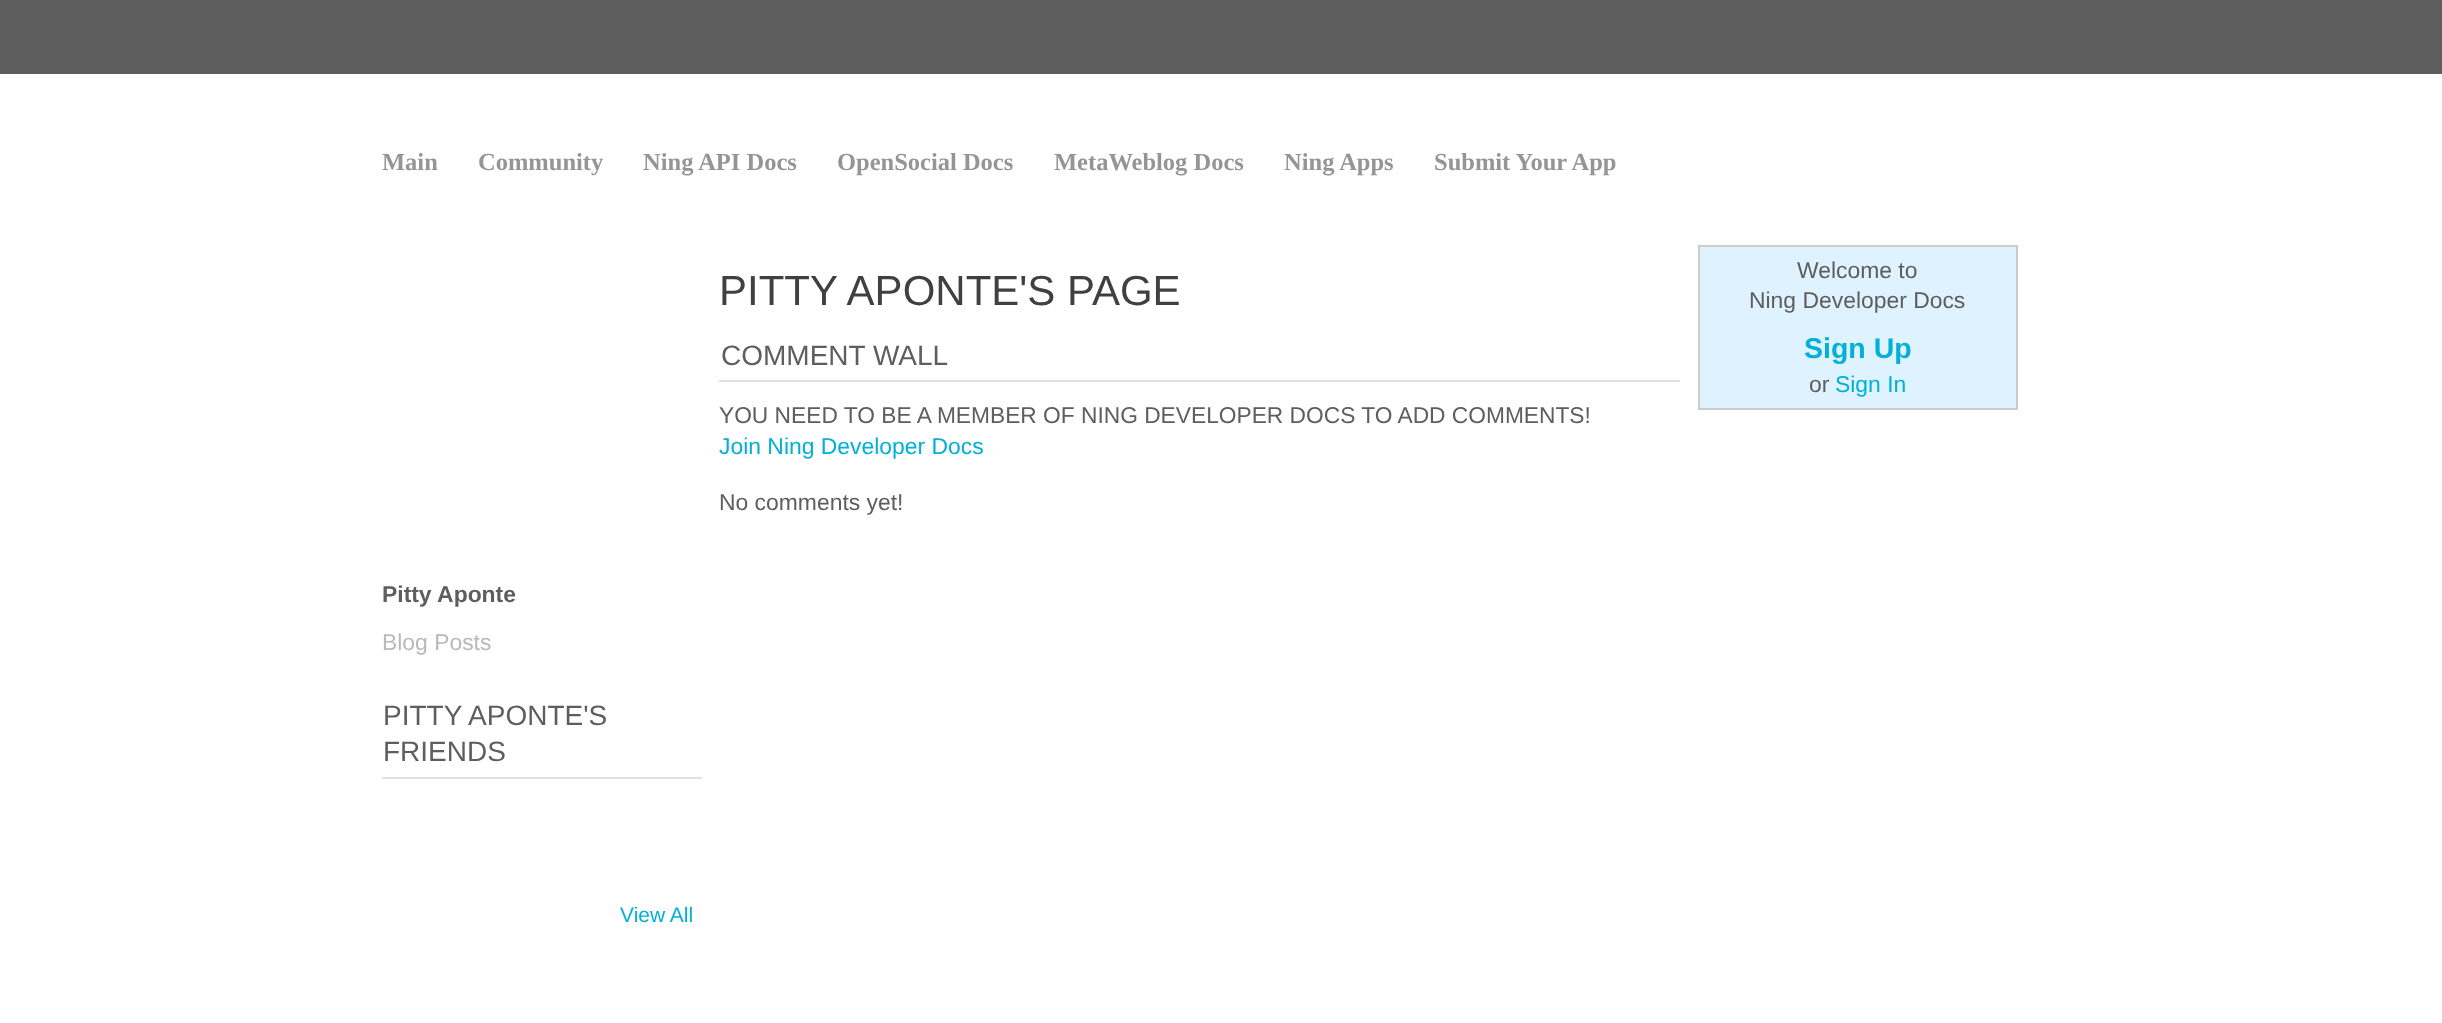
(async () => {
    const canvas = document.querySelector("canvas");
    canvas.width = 2442;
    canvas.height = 1023;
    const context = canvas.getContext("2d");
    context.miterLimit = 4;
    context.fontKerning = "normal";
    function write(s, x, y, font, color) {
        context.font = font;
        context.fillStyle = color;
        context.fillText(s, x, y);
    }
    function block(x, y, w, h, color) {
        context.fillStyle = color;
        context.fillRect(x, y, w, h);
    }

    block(0, 0, 2442, 1023, "rgb(255, 255, 255)");
    block(0, 0, 2442, 74, "rgb(94, 94, 94)");
    write("Main", 382, 170, "bold 24.5px Liberation Serif", "rgb(149, 149, 149)");
    write("Community", 478, 170, "bold 24.5px Liberation Serif", "rgb(149, 149, 149)");
    write("Ning API Docs", 643, 170, "bold 24.5px Liberation Serif", "rgb(149, 149, 149)");
    write("OpenSocial Docs", 837, 170, "bold 24.5px Liberation Serif", "rgb(149, 149, 149)");
    write("MetaWeblog Docs", 1054, 170, "bold 24.5px Liberation Serif", "rgb(149, 149, 149)");
    write("Ning Apps", 1284, 170, "bold 24.5px Liberation Serif", "rgb(149, 149, 149)");
    write("Submit Your App", 1434, 170, "bold 24.5px Liberation Serif", "rgb(149, 149, 149)");
    write("PITTY APONTE'S PAGE", 719, 305, "42px Liberation Sans", "rgb(64, 63, 65)");
    block(719, 380, 961, 2, "rgb(225, 225, 225)");
    write("COMMENT WALL", 721, 365, "28px Liberation Sans", "rgb(94, 94, 94)");
    write("YOU NEED TO BE A MEMBER OF NING DEVELOPER DOCS TO ADD COMMENTS!", 719, 423, "22.75px Liberation Sans", "rgb(94, 94, 94)");
    write("Join Ning Developer Docs", 719, 454, "22.9px Liberation Sans", "rgb(0, 176, 216)");
    write("No comments yet!", 719, 510, "22.9px Liberation Sans", "rgb(94, 94, 94)");
    write("Pitty Aponte", 382, 602, "bold 22.9px Liberation Sans", "rgb(94, 94, 94)");
    write("Blog Posts", 382, 650, "22.9px Liberation Sans", "rgb(185, 185, 185)");
    block(382, 777, 320, 2, "rgb(225, 225, 225)");
    write("PITTY APONTE'S", 383, 725, "28px Liberation Sans", "rgb(94, 94, 94)");
    write("FRIENDS", 383, 761, "28px Liberation Sans", "rgb(94, 94, 94)");
    write("View All", 620, 922, "21px Liberation Sans", "rgb(0, 176, 216)");
    context.fillStyle = "rgb(223, 242, 255)";
    context.beginPath();
    context.rect(1699, 246, 318, 163);
    context.fill();
    context.strokeStyle = "rgb(204, 204, 204)";
    context.lineWidth = 2;
    context.stroke();
    write("Welcome to", 1797, 278, "22.9px Liberation Sans", "rgb(94, 94, 94)");
    write("Ning Developer Docs", 1749, 308, "22.9px Liberation Sans", "rgb(94, 94, 94)");
    write("Sign Up", 1804, 358, "bold 28.5px Liberation Sans", "rgb(0, 176, 216)");
    write("or", 1809, 392, "22.9px Liberation Sans", "rgb(94, 94, 94)");
    write("Sign In", 1835, 392, "22.9px Liberation Sans", "rgb(0, 176, 216)");
})();
